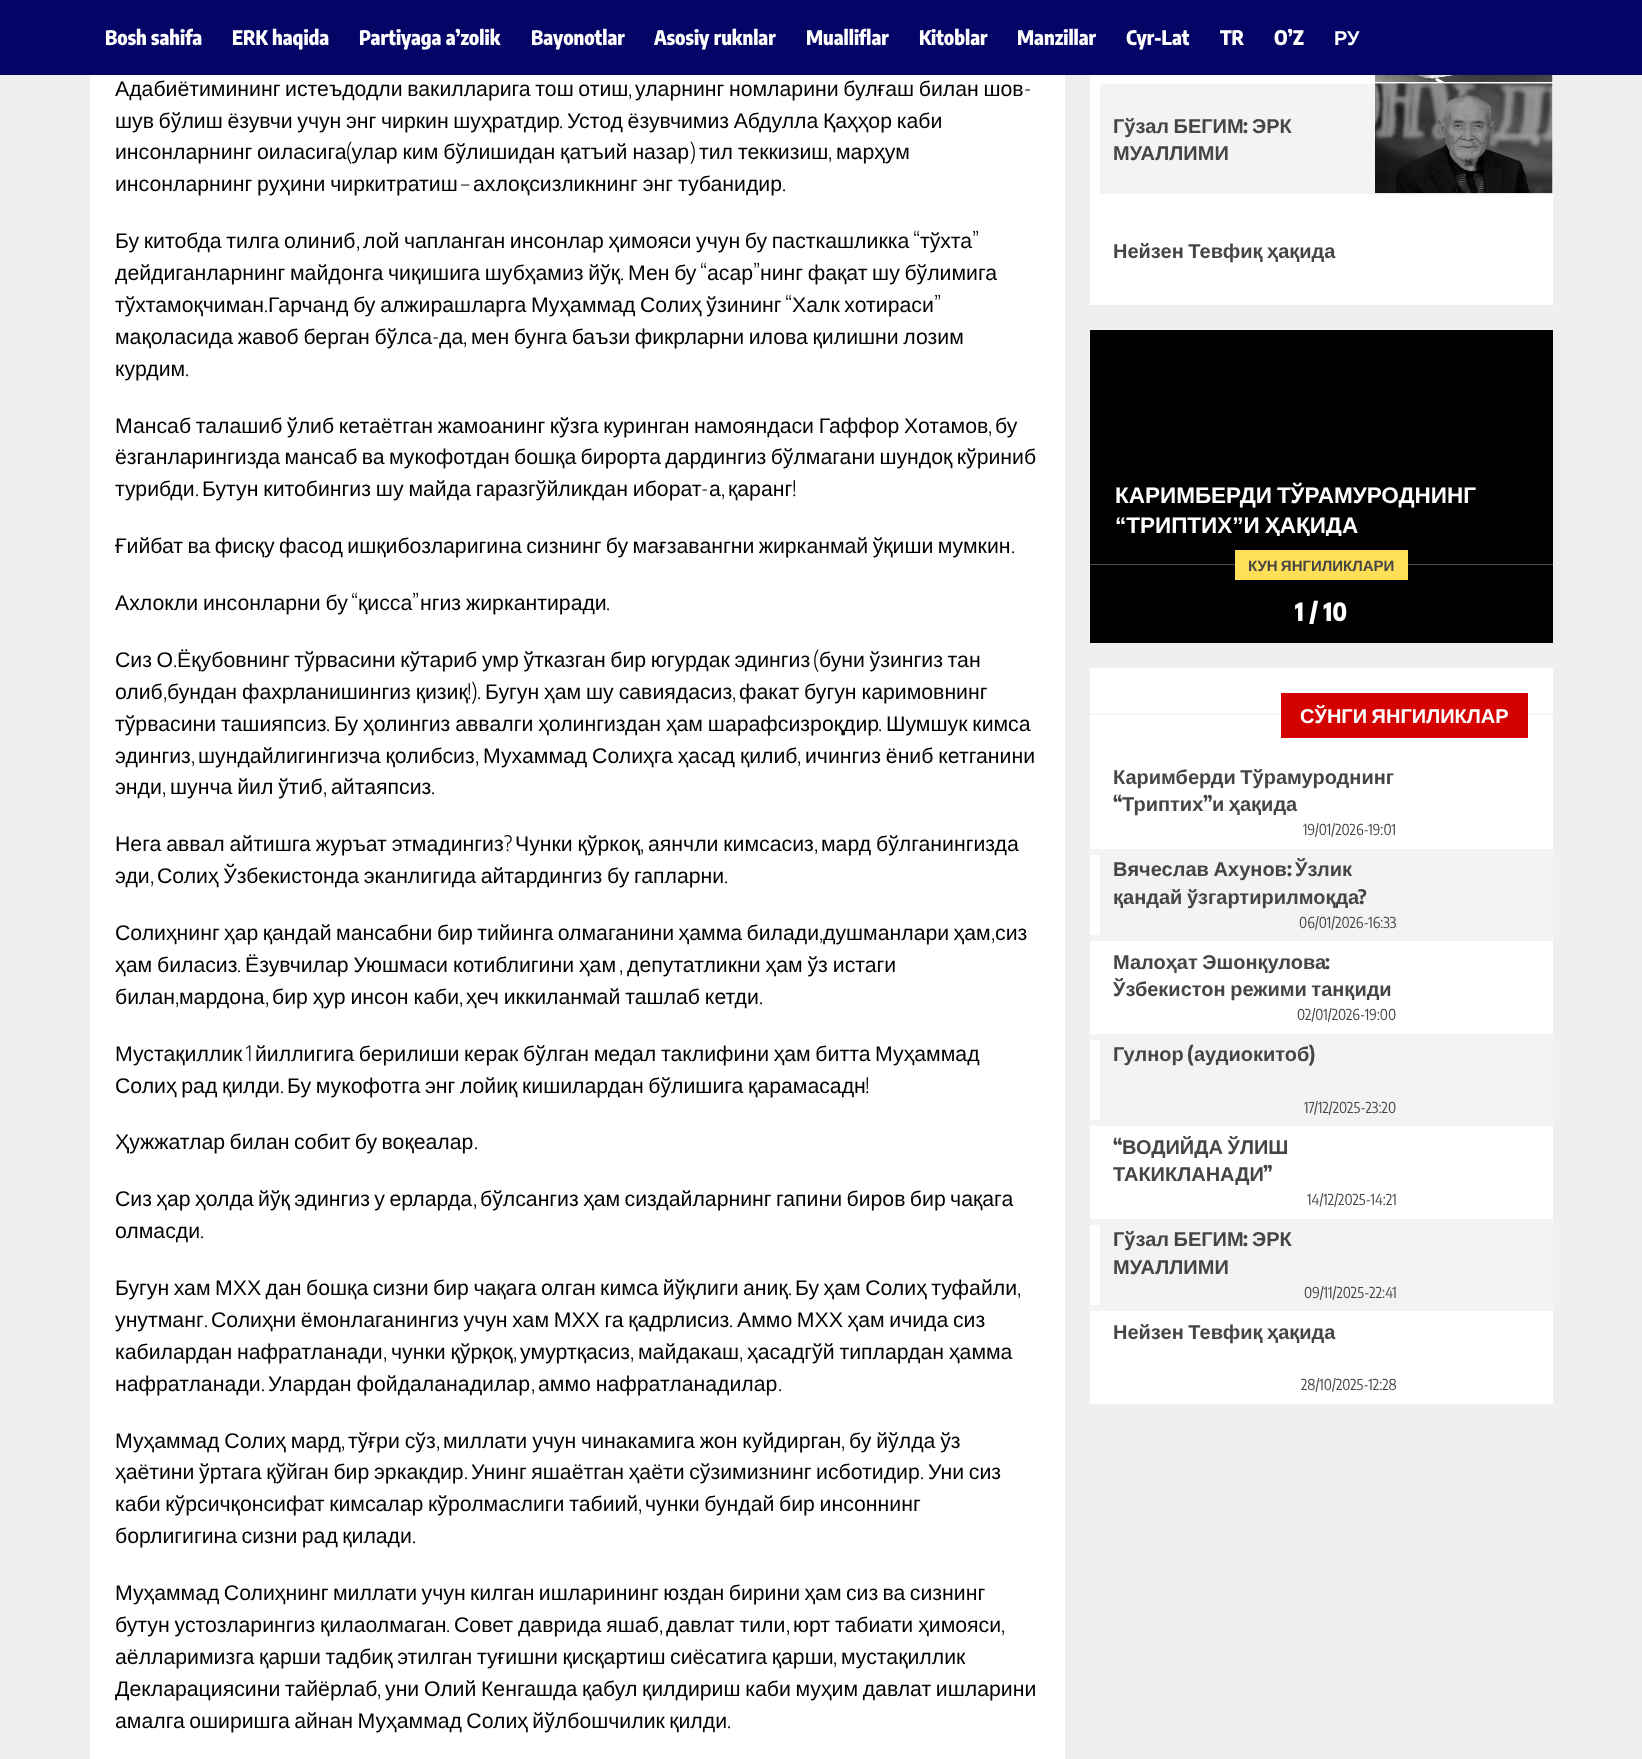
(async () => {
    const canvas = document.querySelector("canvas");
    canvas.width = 1642;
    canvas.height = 1759;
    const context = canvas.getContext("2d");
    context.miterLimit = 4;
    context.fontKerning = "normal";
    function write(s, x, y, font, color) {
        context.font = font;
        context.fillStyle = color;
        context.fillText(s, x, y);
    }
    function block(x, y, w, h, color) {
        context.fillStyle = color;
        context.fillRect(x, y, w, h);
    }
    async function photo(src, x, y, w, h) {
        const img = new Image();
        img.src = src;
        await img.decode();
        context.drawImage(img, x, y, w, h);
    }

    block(0, 0, 1642, 1759, "rgb(239, 239, 239)");
    block(0, 0, 1642, 75, "rgb(4, 4, 103)");
    write("Bosh sahifa", 105, 45, "800 20px Encode Sans Condensed", "rgb(255, 255, 255)");
    write("ERK haqida", 232, 45, "800 20px Encode Sans Condensed", "rgb(255, 255, 255)");
    write("Partiyaga a’zolik", 359, 45, "800 20px Encode Sans Condensed", "rgb(255, 255, 255)");
    write("Bayonotlar", 531, 45, "800 20px Encode Sans Condensed", "rgb(255, 255, 255)");
    write("Asosiy ruknlar", 654, 45, "800 20px Encode Sans Condensed", "rgb(255, 255, 255)");
    write("Mualliflar", 806, 45, "800 20px Encode Sans Condensed", "rgb(255, 255, 255)");
    write("Kitoblar", 919, 45, "800 20px Encode Sans Condensed", "rgb(255, 255, 255)");
    write("Manzillar", 1017, 45, "800 20px Encode Sans Condensed", "rgb(255, 255, 255)");
    write("Cyr-Lat", 1126, 45, "800 20px Encode Sans Condensed", "rgb(255, 255, 255)");
    write("TR", 1220, 45, "800 20px Encode Sans Condensed", "rgb(255, 255, 255)");
    write("O’Z", 1274, 45, "800 20px Encode Sans Condensed", "rgb(255, 255, 255)");
    write("РУ", 1334, 45, "bold 20px Liberation Sans", "rgb(255, 255, 255)");
    block(90, 75, 975, 1684, "rgb(255, 255, 255)");
    context.wordSpacing = "-1.25px";
    write("Адабиётимининг истеъдодли вакилларига тош отиш", 115, 96, "21.25px Liberation Sans", "rgb(0, 0, 0)");
    write("уларнинг номларини булғаш билан шов", 635, 96, "21.25px Liberation Sans", "rgb(0, 0, 0)");
    context.wordSpacing = "0px";
    write("-", 1024, 96, "300 21.25px Encode Sans Condensed", "rgb(0, 0, 0)");
    write(",", 628, 96, "300 21.25px Encode Sans Condensed", "rgb(0, 0, 0)");
    context.wordSpacing = "-1.25px";
    write("шув бўлиш ёзувчи учун энг чиркин шуҳратдир", 115, 128, "21.25px Liberation Sans", "rgb(0, 0, 0)");
    context.wordSpacing = "0px";
    write(".", 559, 128, "300 21.25px Encode Sans Condensed", "rgb(0, 0, 0)");
    context.wordSpacing = "-1.25px";
    write("Устод ёзувчимиз Абдулла Қаҳҳор каби", 567, 128, "21.25px Liberation Sans", "rgb(0, 0, 0)");
    context.wordSpacing = "-1px";
    write("инсонларнинг оиласига улар ким бўлишидан қатъий назар", 115, 159, "21.25px Liberation Sans", "rgb(0, 0, 0)");
    context.wordSpacing = "0px";
    write("(", 346, 159, "300 21.25px Encode Sans Condensed", "rgb(0, 0, 0)");
    write(")", 690, 159, "300 21.25px Encode Sans Condensed", "rgb(0, 0, 0)");
    context.wordSpacing = "-1px";
    write("тил теккизиш", 699, 159, "21.25px Liberation Sans", "rgb(0, 0, 0)");
    context.wordSpacing = "0px";
    write(",", 828, 159, "300 21.25px Encode Sans Condensed", "rgb(0, 0, 0)");
    write("марҳум", 836, 159, "21.25px Liberation Sans", "rgb(0, 0, 0)");
    context.wordSpacing = "-1px";
    write("инсонларнинг руҳини чиркитратиш", 115, 191, "21.25px Liberation Sans", "rgb(0, 0, 0)");
    context.wordSpacing = "0px";
    write("–", 461, 191, "300 21.25px Encode Sans Condensed", "rgb(0, 0, 0)");
    context.wordSpacing = "-1px";
    write("ахлоқсизликнинг энг тубанидир", 473, 191, "21.25px Liberation Sans", "rgb(0, 0, 0)");
    context.wordSpacing = "0px";
    write(".", 782, 191, "300 21.25px Encode Sans Condensed", "rgb(0, 0, 0)");
    context.wordSpacing = "-1.25px";
    write("Бу китобда тилга олиниб", 115, 248, "21.25px Liberation Sans", "rgb(0, 0, 0)");
    context.wordSpacing = "0px";
    write(",", 356, 248, "300 21.25px Encode Sans Condensed", "rgb(0, 0, 0)");
    context.wordSpacing = "-1.25px";
    write("лой чапланган инсонлар ҳимояси учун бу пасткашликка", 363, 248, "21.25px Liberation Sans", "rgb(0, 0, 0)");
    context.wordSpacing = "0px";
    write("“", 913, 248, "300 21.25px Encode Sans Condensed", "rgb(0, 0, 0)");
    write("тўхта", 920, 248, "21.25px Liberation Sans", "rgb(0, 0, 0)");
    write("”", 972, 248, "300 21.25px Encode Sans Condensed", "rgb(0, 0, 0)");
    context.wordSpacing = "-1.25px";
    write("дейдиганларнинг майдонга чиқишига шубҳамиз йўқ", 115, 280, "21.25px Liberation Sans", "rgb(0, 0, 0)");
    context.wordSpacing = "0px";
    write(".", 620, 280, "300 21.25px Encode Sans Condensed", "rgb(0, 0, 0)");
    context.wordSpacing = "-1.25px";
    write("Мен бу", 628, 280, "21.25px Liberation Sans", "rgb(0, 0, 0)");
    context.wordSpacing = "0px";
    write("“", 700, 280, "300 21.25px Encode Sans Condensed", "rgb(0, 0, 0)");
    write("асар", 707, 280, "21.25px Liberation Sans", "rgb(0, 0, 0)");
    write("”", 753, 280, "300 21.25px Encode Sans Condensed", "rgb(0, 0, 0)");
    context.wordSpacing = "-1.25px";
    write("нинг фақат шу бўлимига", 760, 280, "21.25px Liberation Sans", "rgb(0, 0, 0)");
    context.wordSpacing = "0px";
    write("тўхтамоқчиман", 115, 312, "21.25px Liberation Sans", "rgb(0, 0, 0)");
    write(".", 264, 312, "300 21.25px Encode Sans Condensed", "rgb(0, 0, 0)");
    context.wordSpacing = "-1.25px";
    write("Гарчанд бу алжирашларга Муҳаммад Солиҳ ўзининг", 268, 312, "21.25px Liberation Sans", "rgb(0, 0, 0)");
    context.wordSpacing = "0px";
    write("“", 785, 312, "300 21.25px Encode Sans Condensed", "rgb(0, 0, 0)");
    context.wordSpacing = "-1.25px";
    write("Халк хотираси", 792, 312, "21.25px Liberation Sans", "rgb(0, 0, 0)");
    context.wordSpacing = "0px";
    write("”", 934, 312, "300 21.25px Encode Sans Condensed", "rgb(0, 0, 0)");
    context.wordSpacing = "-1.25px";
    write("мақоласида жавоб берган бўлса", 115, 344, "21.25px Liberation Sans", "rgb(0, 0, 0)");
    context.wordSpacing = "0px";
    write("-", 432, 344, "300 21.25px Encode Sans Condensed", "rgb(0, 0, 0)");
    write("да", 439, 344, "21.25px Liberation Sans", "rgb(0, 0, 0)");
    context.wordSpacing = "-1.25px";
    write("мен бунга баъзи фикрларни илова қилишни лозим", 471, 344, "21.25px Liberation Sans", "rgb(0, 0, 0)");
    context.wordSpacing = "0px";
    write(",", 463, 344, "300 21.25px Encode Sans Condensed", "rgb(0, 0, 0)");
    write("курдим", 115, 376, "21.25px Liberation Sans", "rgb(0, 0, 0)");
    write(".", 185, 376, "300 21.25px Encode Sans Condensed", "rgb(0, 0, 0)");
    context.wordSpacing = "-1.25px";
    write("Мансаб талашиб ўлиб кетаётган жамоанинг кўзга куринган намояндаси Гаффор Хотамов", 115, 433, "21.25px Liberation Sans", "rgb(0, 0, 0)");
    context.wordSpacing = "0px";
    write(",", 988, 433, "300 21.25px Encode Sans Condensed", "rgb(0, 0, 0)");
    write("бу", 995, 433, "21.25px Liberation Sans", "rgb(0, 0, 0)");
    context.wordSpacing = "-1.5px";
    write("ёзганларингизда мансаб ва мукофотдан бошқа бирорта дардингиз бўлмагани шундоқ кўриниб", 115, 464, "21.25px Liberation Sans", "rgb(0, 0, 0)");
    context.wordSpacing = "0px";
    write("турибди", 115, 496, "21.25px Liberation Sans", "rgb(0, 0, 0)");
    context.wordSpacing = "-1px";
    write("Бутун китобингиз шу майда гаразгўйликдан иборат", 202, 496, "21.25px Liberation Sans", "rgb(0, 0, 0)");
    context.wordSpacing = "0px";
    write("-", 701, 496, "300 21.25px Encode Sans Condensed", "rgb(0, 0, 0)");
    write("а", 709, 496, "21.25px Liberation Sans", "rgb(0, 0, 0)");
    write("қаранг", 728, 496, "21.25px Liberation Sans", "rgb(0, 0, 0)");
    write("!", 792, 496, "300 21.25px Encode Sans Condensed", "rgb(0, 0, 0)");
    write(".", 195, 496, "300 21.25px Encode Sans Condensed", "rgb(0, 0, 0)");
    write(",", 721, 496, "300 21.25px Encode Sans Condensed", "rgb(0, 0, 0)");
    context.wordSpacing = "-1.5px";
    write("Ғийбат ва фисқу фасод ишқибозларигина сизнинг бу мағзавангни жирканмай ўқиши мумкин", 115, 553, "21.25px Liberation Sans", "rgb(0, 0, 0)");
    context.wordSpacing = "0px";
    write(".", 1011, 553, "300 21.25px Encode Sans Condensed", "rgb(0, 0, 0)");
    context.wordSpacing = "-1px";
    write("Ахлокли инсонларни бу", 115, 610, "21.25px Liberation Sans", "rgb(0, 0, 0)");
    context.wordSpacing = "0px";
    write("“", 351, 610, "300 21.25px Encode Sans Condensed", "rgb(0, 0, 0)");
    write("қисса", 358, 610, "21.25px Liberation Sans", "rgb(0, 0, 0)");
    write("”", 412, 610, "300 21.25px Encode Sans Condensed", "rgb(0, 0, 0)");
    context.wordSpacing = "-1px";
    write("нгиз жиркантиради", 420, 610, "21.25px Liberation Sans", "rgb(0, 0, 0)");
    context.wordSpacing = "0px";
    write(".", 606, 610, "300 21.25px Encode Sans Condensed", "rgb(0, 0, 0)");
    context.wordSpacing = "-1.25px";
    write("Сиз О", 115, 667, "21.25px Liberation Sans", "rgb(0, 0, 0)");
    context.wordSpacing = "0px";
    write(".", 173, 667, "300 21.25px Encode Sans Condensed", "rgb(0, 0, 0)");
    context.wordSpacing = "-1.25px";
    write("Ёқубовнинг тўрвасини кўтариб умр ўтказган бир югурдак эдингиз", 177, 667, "21.25px Liberation Sans", "rgb(0, 0, 0)");
    context.wordSpacing = "0px";
    write("(", 813, 667, "300 21.25px Encode Sans Condensed", "rgb(0, 0, 0)");
    context.wordSpacing = "-1.25px";
    write("буни ўзингиз тан", 819, 667, "21.25px Liberation Sans", "rgb(0, 0, 0)");
    context.wordSpacing = "0px";
    write("олиб", 115, 699, "21.25px Liberation Sans", "rgb(0, 0, 0)");
    write(",", 163, 699, "300 21.25px Encode Sans Condensed", "rgb(0, 0, 0)");
    context.wordSpacing = "-1px";
    write("бундан фахрланишингиз қизиқ", 167, 699, "21.25px Liberation Sans", "rgb(0, 0, 0)");
    context.wordSpacing = "0px";
    write("!).", 467, 699, "300 21.25px Encode Sans Condensed", "rgb(0, 0, 0)");
    context.wordSpacing = "-1px";
    write("Бугун ҳам шу савиядасиз", 485, 699, "21.25px Liberation Sans", "rgb(0, 0, 0)");
    context.wordSpacing = "0px";
    write(",", 732, 699, "300 21.25px Encode Sans Condensed", "rgb(0, 0, 0)");
    context.wordSpacing = "-1px";
    write("факат бугун каримовнинг", 739, 699, "21.25px Liberation Sans", "rgb(0, 0, 0)");
    write("тўрвасини ташияпсиз", 115, 731, "21.25px Liberation Sans", "rgb(0, 0, 0)");
    context.wordSpacing = "0px";
    write(".", 326, 731, "300 21.25px Encode Sans Condensed", "rgb(0, 0, 0)");
    context.wordSpacing = "-1px";
    write("Бу ҳолингиз аввалги ҳолингиздан ҳам шарафсизроқдир", 334, 731, "21.25px Liberation Sans", "rgb(0, 0, 0)");
    context.wordSpacing = "0px";
    write(".", 878, 731, "300 21.25px Encode Sans Condensed", "rgb(0, 0, 0)");
    context.wordSpacing = "-1px";
    write("Шумшук кимса", 886, 731, "21.25px Liberation Sans", "rgb(0, 0, 0)");
    context.wordSpacing = "0px";
    write("эдингиз", 115, 763, "21.25px Liberation Sans", "rgb(0, 0, 0)");
    write(",", 191, 763, "300 21.25px Encode Sans Condensed", "rgb(0, 0, 0)");
    context.wordSpacing = "-1px";
    write("шундайлигингизча қолибсиз", 198, 763, "21.25px Liberation Sans", "rgb(0, 0, 0)");
    context.wordSpacing = "0px";
    write(",", 475, 763, "300 21.25px Encode Sans Condensed", "rgb(0, 0, 0)");
    context.wordSpacing = "-1px";
    write("Мухаммад Солиҳга ҳасад қилиб", 483, 763, "21.25px Liberation Sans", "rgb(0, 0, 0)");
    context.wordSpacing = "0px";
    write(",", 797, 763, "300 21.25px Encode Sans Condensed", "rgb(0, 0, 0)");
    context.wordSpacing = "-1px";
    write("ичингиз ёниб кетганини", 805, 763, "21.25px Liberation Sans", "rgb(0, 0, 0)");
    context.wordSpacing = "0px";
    write("энди", 115, 794, "21.25px Liberation Sans", "rgb(0, 0, 0)");
    write(",", 162, 794, "300 21.25px Encode Sans Condensed", "rgb(0, 0, 0)");
    context.wordSpacing = "-1px";
    write("шунча йил ўтиб", 170, 794, "21.25px Liberation Sans", "rgb(0, 0, 0)");
    context.wordSpacing = "0px";
    write(",", 323, 794, "300 21.25px Encode Sans Condensed", "rgb(0, 0, 0)");
    write("айтаяпсиз", 331, 794, "21.25px Liberation Sans", "rgb(0, 0, 0)");
    write(".", 431, 794, "300 21.25px Encode Sans Condensed", "rgb(0, 0, 0)");
    context.wordSpacing = "-1px";
    write("Нега аввал айтишга журъат этмадингиз", 115, 851, "21.25px Liberation Sans", "rgb(0, 0, 0)");
    context.wordSpacing = "0px";
    write("?", 504, 851, "300 21.25px Encode Sans Condensed", "rgb(0, 0, 0)");
    context.wordSpacing = "-1px";
    write("Чунки қўркоқ", 515, 851, "21.25px Liberation Sans", "rgb(0, 0, 0)");
    context.wordSpacing = "0px";
    write(",", 640, 851, "300 21.25px Encode Sans Condensed", "rgb(0, 0, 0)");
    context.wordSpacing = "-1px";
    write("аянчли кимсасиз", 648, 851, "21.25px Liberation Sans", "rgb(0, 0, 0)");
    context.wordSpacing = "0px";
    write(",", 814, 851, "300 21.25px Encode Sans Condensed", "rgb(0, 0, 0)");
    context.wordSpacing = "-1px";
    write("мард бўлганингизда", 821, 851, "21.25px Liberation Sans", "rgb(0, 0, 0)");
    context.wordSpacing = "0px";
    write("эди", 115, 883, "21.25px Liberation Sans", "rgb(0, 0, 0)");
    write(",", 150, 883, "300 21.25px Encode Sans Condensed", "rgb(0, 0, 0)");
    context.wordSpacing = "-1.25px";
    write("Солиҳ Ўзбекистонда эканлигида айтардингиз бу гапларни", 157, 883, "21.25px Liberation Sans", "rgb(0, 0, 0)");
    context.wordSpacing = "0px";
    write(".", 724, 883, "300 21.25px Encode Sans Condensed", "rgb(0, 0, 0)");
    context.wordSpacing = "-1.5px";
    write("Солиҳнинг ҳар қандай мансабни бир тийинга олмаганини ҳамма билади", 115, 940, "21.25px Liberation Sans", "rgb(0, 0, 0)");
    context.wordSpacing = "0px";
    write(",", 819, 940, "300 21.25px Encode Sans Condensed", "rgb(0, 0, 0)");
    context.wordSpacing = "-1.5px";
    write("душманлари ҳам", 823, 940, "21.25px Liberation Sans", "rgb(0, 0, 0)");
    context.wordSpacing = "0px";
    write(",", 991, 940, "300 21.25px Encode Sans Condensed", "rgb(0, 0, 0)");
    write("сиз", 995, 940, "21.25px Liberation Sans", "rgb(0, 0, 0)");
    context.wordSpacing = "-1px";
    write("ҳам биласиз", 115, 972, "21.25px Liberation Sans", "rgb(0, 0, 0)");
    context.wordSpacing = "0px";
    write(".", 237, 972, "300 21.25px Encode Sans Condensed", "rgb(0, 0, 0)");
    context.wordSpacing = "-1px";
    write("Ёзувчилар Уюшмаси котиблигини ҳам", 245, 972, "21.25px Liberation Sans", "rgb(0, 0, 0)");
    context.wordSpacing = "0px";
    write(",", 619, 972, "300 21.25px Encode Sans Condensed", "rgb(0, 0, 0)");
    context.wordSpacing = "-1px";
    write("депутатликни ҳам ўз истаги", 627, 972, "21.25px Liberation Sans", "rgb(0, 0, 0)");
    context.wordSpacing = "0px";
    write("билан", 115, 1004, "21.25px Liberation Sans", "rgb(0, 0, 0)");
    write(",", 175, 1004, "300 21.25px Encode Sans Condensed", "rgb(0, 0, 0)");
    write("мардона", 179, 1004, "21.25px Liberation Sans", "rgb(0, 0, 0)");
    write(",", 265, 1004, "300 21.25px Encode Sans Condensed", "rgb(0, 0, 0)");
    context.wordSpacing = "-1px";
    write("бир ҳур инсон каби", 272, 1004, "21.25px Liberation Sans", "rgb(0, 0, 0)");
    context.wordSpacing = "0px";
    write(",", 459, 1004, "300 21.25px Encode Sans Condensed", "rgb(0, 0, 0)");
    context.wordSpacing = "-1px";
    write("ҳеч иккиланмай ташлаб кетди", 466, 1004, "21.25px Liberation Sans", "rgb(0, 0, 0)");
    context.wordSpacing = "0px";
    write(".", 759, 1004, "300 21.25px Encode Sans Condensed", "rgb(0, 0, 0)");
    write("Мустақиллик", 115, 1061, "21.25px Liberation Sans", "rgb(0, 0, 0)");
    write("1", 246, 1061, "300 21.25px Encode Sans Condensed", "rgb(0, 0, 0)");
    context.wordSpacing = "-1.25px";
    write("йиллигига берилиши керак бўлган медал таклифини ҳам битта Муҳаммад", 255, 1061, "21.25px Liberation Sans", "rgb(0, 0, 0)");
    write("Солиҳ рад қилди", 115, 1093, "21.25px Liberation Sans", "rgb(0, 0, 0)");
    context.wordSpacing = "0px";
    write(".", 280, 1093, "300 21.25px Encode Sans Condensed", "rgb(0, 0, 0)");
    context.wordSpacing = "-1.25px";
    write("Бу мукофотга энг лойиқ кишилардан бўлишига қарамасадн", 287, 1093, "21.25px Liberation Sans", "rgb(0, 0, 0)");
    context.wordSpacing = "0px";
    write("!", 865, 1093, "300 21.25px Encode Sans Condensed", "rgb(0, 0, 0)");
    context.wordSpacing = "-1.5px";
    write("Ҳужжатлар билан собит бу воқеалар", 115, 1149, "21.25px Liberation Sans", "rgb(0, 0, 0)");
    context.wordSpacing = "0px";
    write(".", 474, 1149, "300 21.25px Encode Sans Condensed", "rgb(0, 0, 0)");
    context.wordSpacing = "-1.5px";
    write("Сиз ҳар ҳолда йўқ эдингиз у ерларда", 115, 1206, "21.25px Liberation Sans", "rgb(0, 0, 0)");
    context.wordSpacing = "0px";
    write(",", 473, 1206, "300 21.25px Encode Sans Condensed", "rgb(0, 0, 0)");
    context.wordSpacing = "-1.5px";
    write("бўлсангиз ҳам сиздайларнинг гапини биров бир чақага", 480, 1206, "21.25px Liberation Sans", "rgb(0, 0, 0)");
    context.wordSpacing = "0px";
    write("олмасди", 115, 1238, "21.25px Liberation Sans", "rgb(0, 0, 0)");
    write(".", 200, 1238, "300 21.25px Encode Sans Condensed", "rgb(0, 0, 0)");
    context.wordSpacing = "-1.4px";
    write("Бугун хам МХХ дан бошқа сизни бир чақага олган кимса йўқлиги аниқ", 115, 1295, "21.25px Liberation Sans", "rgb(0, 0, 0)");
    context.wordSpacing = "0px";
    write(".", 788, 1295, "300 21.25px Encode Sans Condensed", "rgb(0, 0, 0)");
    context.wordSpacing = "-1.4px";
    write("Бу ҳам Солиҳ туфайли", 795, 1295, "21.25px Liberation Sans", "rgb(0, 0, 0)");
    context.wordSpacing = "0px";
    write(",", 1017, 1295, "300 21.25px Encode Sans Condensed", "rgb(0, 0, 0)");
    write("унутманг", 115, 1327, "21.25px Liberation Sans", "rgb(0, 0, 0)");
    write(".", 204, 1327, "300 21.25px Encode Sans Condensed", "rgb(0, 0, 0)");
    context.wordSpacing = "-1.25px";
    write("Солиҳни ёмонлаганингиз учун хам МХХ га қадрлисиз", 211, 1327, "21.25px Liberation Sans", "rgb(0, 0, 0)");
    context.wordSpacing = "0px";
    write(".", 729, 1327, "300 21.25px Encode Sans Condensed", "rgb(0, 0, 0)");
    context.wordSpacing = "-1.25px";
    write("Аммо МХХ ҳам ичида сиз", 737, 1327, "21.25px Liberation Sans", "rgb(0, 0, 0)");
    context.wordSpacing = "-1px";
    write("кабилардан нафратланади", 115, 1359, "21.25px Liberation Sans", "rgb(0, 0, 0)");
    context.wordSpacing = "0px";
    write(",", 383, 1359, "300 21.25px Encode Sans Condensed", "rgb(0, 0, 0)");
    context.wordSpacing = "-1px";
    write("чунки қўрқоқ", 391, 1359, "21.25px Liberation Sans", "rgb(0, 0, 0)");
    context.wordSpacing = "0px";
    write(",", 513, 1359, "300 21.25px Encode Sans Condensed", "rgb(0, 0, 0)");
    write("умуртқасиз", 520, 1359, "21.25px Liberation Sans", "rgb(0, 0, 0)");
    write(",", 630, 1359, "300 21.25px Encode Sans Condensed", "rgb(0, 0, 0)");
    write("майдакаш", 638, 1359, "21.25px Liberation Sans", "rgb(0, 0, 0)");
    write(",", 739, 1359, "300 21.25px Encode Sans Condensed", "rgb(0, 0, 0)");
    context.wordSpacing = "-1px";
    write("ҳасадгўй типлардан ҳамма", 747, 1359, "21.25px Liberation Sans", "rgb(0, 0, 0)");
    context.wordSpacing = "0px";
    write("нафратланади", 115, 1391, "21.25px Liberation Sans", "rgb(0, 0, 0)");
    write(".", 261, 1391, "300 21.25px Encode Sans Condensed", "rgb(0, 0, 0)");
    context.wordSpacing = "-1px";
    write("Улардан фойдаланадилар", 268, 1391, "21.25px Liberation Sans", "rgb(0, 0, 0)");
    context.wordSpacing = "0px";
    write(",", 531, 1391, "300 21.25px Encode Sans Condensed", "rgb(0, 0, 0)");
    context.wordSpacing = "-1px";
    write("аммо нафратланадилар", 538, 1391, "21.25px Liberation Sans", "rgb(0, 0, 0)");
    context.wordSpacing = "0px";
    write(".", 778, 1391, "300 21.25px Encode Sans Condensed", "rgb(0, 0, 0)");
    context.wordSpacing = "-1px";
    write("Муҳаммад Солиҳ мард", 115, 1448, "21.25px Liberation Sans", "rgb(0, 0, 0)");
    context.wordSpacing = "0px";
    write(",", 341, 1448, "300 21.25px Encode Sans Condensed", "rgb(0, 0, 0)");
    context.wordSpacing = "-1px";
    write("тўғри сўз", 348, 1448, "21.25px Liberation Sans", "rgb(0, 0, 0)");
    context.wordSpacing = "0px";
    write(",", 436, 1448, "300 21.25px Encode Sans Condensed", "rgb(0, 0, 0)");
    context.wordSpacing = "-1px";
    write("миллати учун чинакамига жон куйдирган", 443, 1448, "21.25px Liberation Sans", "rgb(0, 0, 0)");
    context.wordSpacing = "0px";
    write(",", 841, 1448, "300 21.25px Encode Sans Condensed", "rgb(0, 0, 0)");
    context.wordSpacing = "-1px";
    write("бу йўлда ўз", 849, 1448, "21.25px Liberation Sans", "rgb(0, 0, 0)");
    context.wordSpacing = "-1.25px";
    write("ҳаётини ўртага қўйган бир эркакдир", 115, 1479, "21.25px Liberation Sans", "rgb(0, 0, 0)");
    context.wordSpacing = "0px";
    write(".", 464, 1479, "300 21.25px Encode Sans Condensed", "rgb(0, 0, 0)");
    context.wordSpacing = "-1.25px";
    write("Унинг яшаётган ҳаёти сўзимизнинг исботидир", 471, 1479, "21.25px Liberation Sans", "rgb(0, 0, 0)");
    context.wordSpacing = "0px";
    write(".", 920, 1479, "300 21.25px Encode Sans Condensed", "rgb(0, 0, 0)");
    context.wordSpacing = "-1.25px";
    write("Уни сиз", 928, 1479, "21.25px Liberation Sans", "rgb(0, 0, 0)");
    write("каби кўрсичқонсифат кимсалар кўролмаслиги табиий", 115, 1511, "21.25px Liberation Sans", "rgb(0, 0, 0)");
    context.wordSpacing = "0px";
    write(",", 638, 1511, "300 21.25px Encode Sans Condensed", "rgb(0, 0, 0)");
    context.wordSpacing = "-1.25px";
    write("чунки бундай бир инсоннинг", 645, 1511, "21.25px Liberation Sans", "rgb(0, 0, 0)");
    context.wordSpacing = "-1.5px";
    write("борлигигина сизни рад қилади", 115, 1543, "21.25px Liberation Sans", "rgb(0, 0, 0)");
    context.wordSpacing = "0px";
    write(".", 412, 1543, "300 21.25px Encode Sans Condensed", "rgb(0, 0, 0)");
    context.wordSpacing = "-1.5px";
    write("Муҳаммад Солиҳнинг миллати учун килган ишларининг юздан бирини ҳам сиз ва сизнинг", 115, 1600, "21.25px Liberation Sans", "rgb(0, 0, 0)");
    context.wordSpacing = "-1px";
    write("бутун устозларингиз қилаолмаган", 115, 1632, "21.25px Liberation Sans", "rgb(0, 0, 0)");
    context.wordSpacing = "0px";
    write(".", 446, 1632, "300 21.25px Encode Sans Condensed", "rgb(0, 0, 0)");
    context.wordSpacing = "-1px";
    write("Совет даврида яшаб", 454, 1632, "21.25px Liberation Sans", "rgb(0, 0, 0)");
    context.wordSpacing = "0px";
    write(",", 659, 1632, "300 21.25px Encode Sans Condensed", "rgb(0, 0, 0)");
    context.wordSpacing = "-1px";
    write("давлат тили", 666, 1632, "21.25px Liberation Sans", "rgb(0, 0, 0)");
    context.wordSpacing = "0px";
    write(",", 786, 1632, "300 21.25px Encode Sans Condensed", "rgb(0, 0, 0)");
    context.wordSpacing = "-1px";
    write("юрт табиати ҳимояси", 793, 1632, "21.25px Liberation Sans", "rgb(0, 0, 0)");
    context.wordSpacing = "0px";
    write(",", 1001, 1632, "300 21.25px Encode Sans Condensed", "rgb(0, 0, 0)");
    context.wordSpacing = "-1.25px";
    write("аёлларимизга қарши тадбиқ этилган туғишни қисқартиш сиёсатига қарши", 115, 1664, "21.25px Liberation Sans", "rgb(0, 0, 0)");
    context.wordSpacing = "0px";
    write(",", 833, 1664, "300 21.25px Encode Sans Condensed", "rgb(0, 0, 0)");
    write("мустақиллик", 841, 1664, "21.25px Liberation Sans", "rgb(0, 0, 0)");
    context.wordSpacing = "-1.25px";
    write("Декларациясини тайёрлаб", 115, 1696, "21.25px Liberation Sans", "rgb(0, 0, 0)");
    context.wordSpacing = "0px";
    write(",", 377, 1696, "300 21.25px Encode Sans Condensed", "rgb(0, 0, 0)");
    context.wordSpacing = "-1.25px";
    write("уни Олий Кенгашда қабул қилдириш каби муҳим давлат ишларини", 385, 1696, "21.25px Liberation Sans", "rgb(0, 0, 0)");
    context.wordSpacing = "-1.5px";
    write("амалга оширишга айнан Муҳаммад Солиҳ йўлбошчилик қилди", 115, 1728, "21.25px Liberation Sans", "rgb(0, 0, 0)");
    context.wordSpacing = "0px";
    write(".", 727, 1728, "300 21.25px Encode Sans Condensed", "rgb(0, 0, 0)");
    block(1090, 75, 463, 230, "rgb(255, 255, 255)");
    await photo("media/1.png", 1375, 75, 178, 7);
    block(1100, 84, 453, 110, "rgb(243, 243, 243)");
    context.wordSpacing = "-1px";
    write("Гўзал БЕГИМ", 1113, 133, "bold 20px Liberation Sans", "rgb(69, 69, 69)");
    context.wordSpacing = "0px";
    write(":", 1243, 133, "bold 20px Encode Sans Condensed", "rgb(69, 69, 69)");
    write("ЭРК", 1252, 133, "bold 20px Liberation Sans", "rgb(69, 69, 69)");
    write("МУАЛЛИМИ", 1113, 160, "bold 20px Liberation Sans", "rgb(69, 69, 69)");
    await photo("media/2.png", 1375, 83, 178, 111);
    context.wordSpacing = "-1px";
    write("Нейзен Тевфиқ ҳақида", 1113, 258, "bold 20px Liberation Sans", "rgb(69, 69, 69)");
    block(1090, 330, 463, 313, "rgb(0, 0, 0)");
    context.wordSpacing = "-1.25px";
    write("КАРИМБЕРДИ ТЎРАМУРОДНИНГ", 1115, 503, "bold 22.5px Liberation Sans", "rgb(255, 255, 255)");
    context.save();
    context.beginPath();
    context.rect(1090, 479, 463, 57);
    context.clip();
    write("“ТРИПТИХ”И ҲАҚИДА", 1115, 533, "bold 22.5px Liberation Sans", "rgb(255, 255, 255)");
    context.restore();
    block(1090, 564, 463, 1, "rgb(80, 80, 80)");
    block(1235, 550, 173, 30, "rgb(255, 222, 88)");
    context.wordSpacing = "-1px";
    write("КУН ЯНГИЛИКЛАРИ", 1248, 571, "bold 15px Liberation Sans", "rgb(69, 69, 69)");
    context.wordSpacing = "0px";
    write("1 / 10", 1295, 621, "800 25px Encode Sans Condensed", "rgb(255, 255, 255)");
    block(1090, 668, 463, 736, "rgb(255, 255, 255)");
    block(1090, 714, 463, 1, "rgb(239, 239, 239)");
    block(1281, 693, 247, 45, "rgb(213, 0, 0)");
    context.wordSpacing = "-1px";
    write("СЎНГИ ЯНГИЛИКЛАР", 1300, 723, "bold 20px Liberation Sans", "rgb(255, 255, 255)");
    write("Каримберди Тўрамуроднинг", 1113, 784, "bold 20px Liberation Sans", "rgb(69, 69, 69)");
    context.wordSpacing = "0px";
    write("“", 1113, 811, "bold 20px Encode Sans Condensed", "rgb(69, 69, 69)");
    write("Триптих", 1122, 811, "bold 20px Liberation Sans", "rgb(69, 69, 69)");
    write("”", 1203, 811, "bold 20px Encode Sans Condensed", "rgb(69, 69, 69)");
    context.wordSpacing = "-1px";
    write("и ҳақида", 1212, 811, "bold 20px Liberation Sans", "rgb(69, 69, 69)");
    context.wordSpacing = "0px";
    write("19/01/2026-19:01", 1303, 835, "15px Encode Sans Condensed", "rgb(69, 69, 69)");
    block(1090, 849, 463, 92, "rgb(243, 243, 243)");
    block(1090, 855, 10, 80, "rgb(255, 255, 255)");
    context.wordSpacing = "-1px";
    write("Вячеслав Ахунов", 1113, 876, "bold 20px Liberation Sans", "rgb(69, 69, 69)");
    context.wordSpacing = "0px";
    write(":", 1287, 876, "bold 20px Encode Sans Condensed", "rgb(69, 69, 69)");
    write("Ўзлик", 1295, 876, "bold 20px Liberation Sans", "rgb(69, 69, 69)");
    context.wordSpacing = "-1px";
    write("қандай ўзгартирилмоқда", 1113, 904, "bold 20px Liberation Sans", "rgb(69, 69, 69)");
    context.wordSpacing = "0px";
    write("?", 1358, 904, "bold 20px Encode Sans Condensed", "rgb(69, 69, 69)");
    write("06/01/2026-16:33", 1299, 928, "15px Encode Sans Condensed", "rgb(69, 69, 69)");
    context.wordSpacing = "-1px";
    write("Малоҳат Эшонқулова", 1113, 969, "bold 20px Liberation Sans", "rgb(69, 69, 69)");
    context.wordSpacing = "0px";
    write(":", 1325, 969, "bold 20px Encode Sans Condensed", "rgb(69, 69, 69)");
    context.wordSpacing = "-1px";
    write("Ўзбекистон режими танқиди", 1113, 996, "bold 20px Liberation Sans", "rgb(69, 69, 69)");
    context.wordSpacing = "0px";
    write("02/01/2026-19:00", 1297, 1020, "15px Encode Sans Condensed", "rgb(69, 69, 69)");
    block(1090, 1034, 463, 92, "rgb(243, 243, 243)");
    block(1090, 1040, 10, 80, "rgb(255, 255, 255)");
    write("Гулнор", 1113, 1061, "bold 20px Liberation Sans", "rgb(69, 69, 69)");
    write("(", 1187, 1061, "bold 20px Encode Sans Condensed", "rgb(69, 69, 69)");
    write("аудиокитоб", 1194, 1061, "bold 20px Liberation Sans", "rgb(69, 69, 69)");
    write(")", 1309, 1061, "bold 20px Encode Sans Condensed", "rgb(69, 69, 69)");
    write("17/12/2025-23:20", 1304, 1113, "15px Encode Sans Condensed", "rgb(69, 69, 69)");
    write("“", 1113, 1154, "bold 20px Encode Sans Condensed", "rgb(69, 69, 69)");
    context.wordSpacing = "-1px";
    write("ВОДИЙДА ЎЛИШ", 1122, 1154, "bold 20px Liberation Sans", "rgb(69, 69, 69)");
    context.wordSpacing = "0px";
    write("ТАКИКЛАНАДИ", 1113, 1181, "bold 20px Liberation Sans", "rgb(69, 69, 69)");
    write("”", 1263, 1181, "bold 20px Encode Sans Condensed", "rgb(69, 69, 69)");
    write("14/12/2025-14:21", 1307, 1205, "15px Encode Sans Condensed", "rgb(69, 69, 69)");
    block(1090, 1219, 463, 92, "rgb(243, 243, 243)");
    block(1090, 1225, 10, 80, "rgb(255, 255, 255)");
    context.wordSpacing = "-1px";
    write("Гўзал БЕГИМ", 1113, 1246, "bold 20px Liberation Sans", "rgb(69, 69, 69)");
    context.wordSpacing = "0px";
    write(":", 1243, 1246, "bold 20px Encode Sans Condensed", "rgb(69, 69, 69)");
    write("ЭРК", 1252, 1246, "bold 20px Liberation Sans", "rgb(69, 69, 69)");
    write("МУАЛЛИМИ", 1113, 1274, "bold 20px Liberation Sans", "rgb(69, 69, 69)");
    write("09/11/2025-22:41", 1304, 1298, "15px Encode Sans Condensed", "rgb(69, 69, 69)");
    context.wordSpacing = "-1px";
    write("Нейзен Тевфиқ ҳақида", 1113, 1339, "bold 20px Liberation Sans", "rgb(69, 69, 69)");
    context.wordSpacing = "0px";
    write("28/10/2025-12:28", 1301, 1390, "15px Encode Sans Condensed", "rgb(69, 69, 69)");
})();
